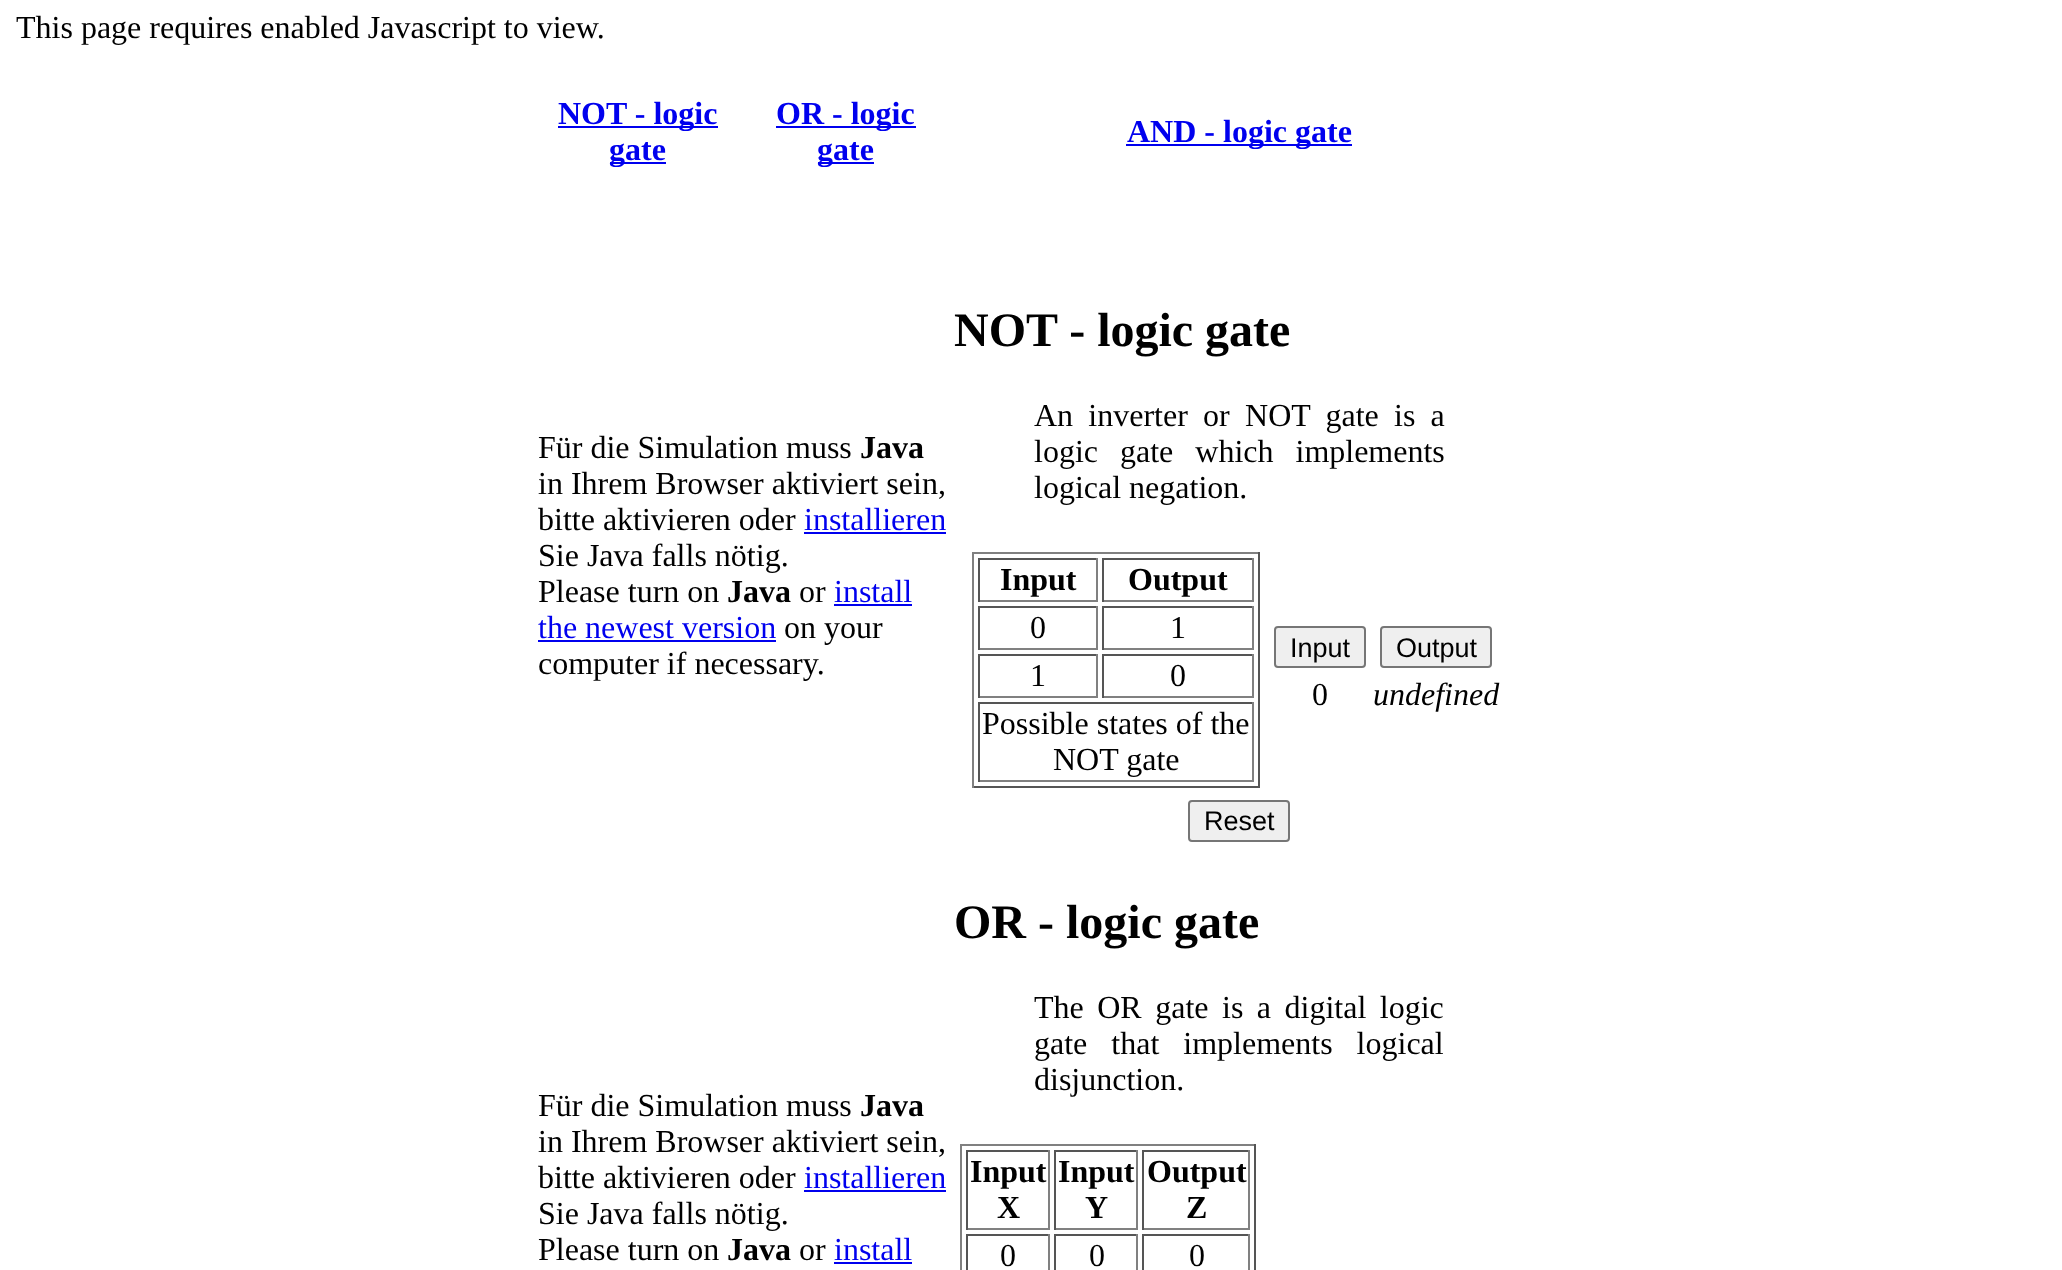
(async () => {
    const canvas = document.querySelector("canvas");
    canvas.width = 2062;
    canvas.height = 1270;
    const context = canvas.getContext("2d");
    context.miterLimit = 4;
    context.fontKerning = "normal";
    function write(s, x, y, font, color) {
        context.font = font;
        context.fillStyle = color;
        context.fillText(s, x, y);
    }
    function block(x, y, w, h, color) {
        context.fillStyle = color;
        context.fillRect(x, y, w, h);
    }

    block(0, 0, 2062, 1270, "rgb(255, 255, 255)");
    write("This page requires enabled Javascript to view.", 16, 38, "32px Liberation Serif", "rgb(0, 0, 0)");
    block(558, 126, 160, 2, "rgb(0, 0, 238)");
    write("NOT - logic", 558, 124, "bold 32px Liberation Serif", "rgb(0, 0, 238)");
    block(610, 162, 56, 2, "rgb(0, 0, 238)");
    write("gate", 609, 160, "bold 32px Liberation Serif", "rgb(0, 0, 238)");
    block(776, 126, 140, 2, "rgb(0, 0, 238)");
    write("OR - logic", 776, 124, "bold 32px Liberation Serif", "rgb(0, 0, 238)");
    block(818, 162, 56, 2, "rgb(0, 0, 238)");
    write("gate", 817, 160, "bold 32px Liberation Serif", "rgb(0, 0, 238)");
    block(1126, 144, 226, 2, "rgb(0, 0, 238)");
    write("AND - logic gate", 1127, 142, "bold 32px Liberation Serif", "rgb(0, 0, 238)");
    write("Für die Simulation muss", 538, 458, "32px Liberation Serif", "rgb(0, 0, 0)");
    write("Java", 860, 458, "bold 32px Liberation Serif", "rgb(0, 0, 0)");
    write("in Ihrem Browser aktiviert sein,", 538, 494, "32px Liberation Serif", "rgb(0, 0, 0)");
    write("bitte aktivieren oder", 538, 530, "32px Liberation Serif", "rgb(0, 0, 0)");
    write("installieren", 804, 530, "32px Liberation Serif", "rgb(0, 0, 238)");
    block(804, 532, 142, 2, "rgb(0, 0, 238)");
    write("Sie Java falls nötig.", 538, 566, "32px Liberation Serif", "rgb(0, 0, 0)");
    write("Please turn on", 538, 602, "32px Liberation Serif", "rgb(0, 0, 0)");
    write("Java", 727, 602, "bold 32px Liberation Serif", "rgb(0, 0, 0)");
    write("or", 799, 602, "32px Liberation Serif", "rgb(0, 0, 0)");
    write("install", 834, 602, "32px Liberation Serif", "rgb(0, 0, 238)");
    block(834, 604, 78, 2, "rgb(0, 0, 238)");
    write("the newest version", 538, 638, "32px Liberation Serif", "rgb(0, 0, 238)");
    write("on your", 784, 638, "32px Liberation Serif", "rgb(0, 0, 0)");
    block(538, 640, 238, 2, "rgb(0, 0, 238)");
    write("computer if necessary.", 538, 674, "32px Liberation Serif", "rgb(0, 0, 0)");
    write("NOT - logic gate", 954, 346, "bold 48px Liberation Serif", "rgb(0, 0, 0)");
    context.wordSpacing = "7.25px";
    write("An inverter or NOT gate is a", 1034, 426, "32px Liberation Serif", "rgb(0, 0, 0)");
    context.wordSpacing = "14px";
    write("logic gate which implements", 1034, 462, "32px Liberation Serif", "rgb(0, 0, 0)");
    context.wordSpacing = "0px";
    write("logical negation.", 1034, 498, "32px Liberation Serif", "rgb(0, 0, 0)");
    block(972, 552, 288, 2, "rgb(128, 128, 128)");
    block(1258, 552, 2, 236, "rgb(85, 85, 85)");
    block(972, 786, 288, 2, "rgb(85, 85, 85)");
    block(972, 552, 2, 236, "rgb(128, 128, 128)");
    block(978, 558, 120, 2, "rgb(85, 85, 85)");
    block(1096, 558, 2, 44, "rgb(128, 128, 128)");
    block(978, 600, 120, 2, "rgb(128, 128, 128)");
    block(978, 558, 2, 44, "rgb(85, 85, 85)");
    write("Input", 1000, 590, "bold 32px Liberation Serif", "rgb(0, 0, 0)");
    block(1102, 558, 152, 2, "rgb(85, 85, 85)");
    block(1252, 558, 2, 44, "rgb(128, 128, 128)");
    block(1102, 600, 152, 2, "rgb(128, 128, 128)");
    block(1102, 558, 2, 44, "rgb(85, 85, 85)");
    write("Output", 1128, 590, "bold 32px Liberation Serif", "rgb(0, 0, 0)");
    block(978, 606, 120, 2, "rgb(85, 85, 85)");
    block(1096, 606, 2, 44, "rgb(128, 128, 128)");
    block(978, 648, 120, 2, "rgb(128, 128, 128)");
    block(978, 606, 2, 44, "rgb(85, 85, 85)");
    write("0", 1030, 638, "32px Liberation Serif", "rgb(0, 0, 0)");
    block(1102, 606, 152, 2, "rgb(85, 85, 85)");
    block(1252, 606, 2, 44, "rgb(128, 128, 128)");
    block(1102, 648, 152, 2, "rgb(128, 128, 128)");
    block(1102, 606, 2, 44, "rgb(85, 85, 85)");
    write("1", 1170, 638, "32px Liberation Serif", "rgb(0, 0, 0)");
    block(978, 654, 120, 2, "rgb(85, 85, 85)");
    block(1096, 654, 2, 44, "rgb(128, 128, 128)");
    block(978, 696, 120, 2, "rgb(128, 128, 128)");
    block(978, 654, 2, 44, "rgb(85, 85, 85)");
    write("1", 1030, 686, "32px Liberation Serif", "rgb(0, 0, 0)");
    block(1102, 654, 152, 2, "rgb(85, 85, 85)");
    block(1252, 654, 2, 44, "rgb(128, 128, 128)");
    block(1102, 696, 152, 2, "rgb(128, 128, 128)");
    block(1102, 654, 2, 44, "rgb(85, 85, 85)");
    write("0", 1170, 686, "32px Liberation Serif", "rgb(0, 0, 0)");
    block(978, 702, 276, 2, "rgb(85, 85, 85)");
    block(1252, 702, 2, 80, "rgb(128, 128, 128)");
    block(978, 780, 276, 2, "rgb(128, 128, 128)");
    block(978, 702, 2, 80, "rgb(85, 85, 85)");
    write("Possible states of the", 982, 734, "32px Liberation Serif", "rgb(0, 0, 0)");
    write("NOT gate", 1053, 770, "32px Liberation Serif", "rgb(0, 0, 0)");
    context.fillStyle = "rgb(239, 239, 239)";
    context.beginPath();
    context.roundRect(1275, 627, 90, 40, 3);
    context.fill();
    context.strokeStyle = "rgb(118, 118, 118)";
    context.lineWidth = 2;
    context.stroke();
    write("Input", 1290, 657, "27px Liberation Sans", "rgb(0, 0, 0)");
    context.fillStyle = "rgb(239, 239, 239)";
    context.beginPath();
    context.roundRect(1381, 627, 110, 40, 3);
    context.fill();
    context.stroke();
    write("Output", 1396, 657, "27px Liberation Sans", "rgb(0, 0, 0)");
    write("0", 1312, 705, "32px Liberation Serif", "rgb(0, 0, 0)");
    write("undefined", 1373, 705, "italic 32px Liberation Serif", "rgb(0, 0, 0)");
    context.fillStyle = "rgb(239, 239, 239)";
    context.beginPath();
    context.roundRect(1189, 801, 100, 40, 3);
    context.fill();
    context.stroke();
    write("Reset", 1204, 830, "27px Liberation Sans", "rgb(0, 0, 0)");
    write("Für die Simulation muss", 538, 1116, "32px Liberation Serif", "rgb(0, 0, 0)");
    write("Java", 860, 1116, "bold 32px Liberation Serif", "rgb(0, 0, 0)");
    write("in Ihrem Browser aktiviert sein,", 538, 1152, "32px Liberation Serif", "rgb(0, 0, 0)");
    write("bitte aktivieren oder", 538, 1188, "32px Liberation Serif", "rgb(0, 0, 0)");
    write("installieren", 804, 1188, "32px Liberation Serif", "rgb(0, 0, 238)");
    block(804, 1190, 142, 2, "rgb(0, 0, 238)");
    write("Sie Java falls nötig.", 538, 1224, "32px Liberation Serif", "rgb(0, 0, 0)");
    write("Please turn on", 538, 1260, "32px Liberation Serif", "rgb(0, 0, 0)");
    write("Java", 727, 1260, "bold 32px Liberation Serif", "rgb(0, 0, 0)");
    write("or", 799, 1260, "32px Liberation Serif", "rgb(0, 0, 0)");
    write("install", 834, 1260, "32px Liberation Serif", "rgb(0, 0, 238)");
    block(834, 1262, 78, 2, "rgb(0, 0, 238)");
    write("OR - logic gate", 954, 938, "bold 48px Liberation Serif", "rgb(0, 0, 0)");
    context.wordSpacing = "5.5px";
    write("The OR gate is a digital logic", 1034, 1018, "32px Liberation Serif", "rgb(0, 0, 0)");
    context.wordSpacing = "16px";
    write("gate that implements logical", 1034, 1054, "32px Liberation Serif", "rgb(0, 0, 0)");
    context.wordSpacing = "0px";
    write("disjunction.", 1034, 1090, "32px Liberation Serif", "rgb(0, 0, 0)");
    block(960, 1144, 296, 2, "rgb(128, 128, 128)");
    block(1254, 1144, 2, 126, "rgb(85, 85, 85)");
    block(960, 1144, 2, 126, "rgb(128, 128, 128)");
    block(966, 1150, 84, 2, "rgb(85, 85, 85)");
    block(1048, 1150, 2, 80, "rgb(128, 128, 128)");
    block(966, 1228, 84, 2, "rgb(128, 128, 128)");
    block(966, 1150, 2, 80, "rgb(85, 85, 85)");
    write("Input", 970, 1182, "bold 32px Liberation Serif", "rgb(0, 0, 0)");
    write("X", 997, 1218, "bold 32px Liberation Serif", "rgb(0, 0, 0)");
    block(1054, 1150, 84, 2, "rgb(85, 85, 85)");
    block(1136, 1150, 2, 80, "rgb(128, 128, 128)");
    block(1054, 1228, 84, 2, "rgb(128, 128, 128)");
    block(1054, 1150, 2, 80, "rgb(85, 85, 85)");
    write("Input", 1058, 1182, "bold 32px Liberation Serif", "rgb(0, 0, 0)");
    write("Y", 1085, 1218, "bold 32px Liberation Serif", "rgb(0, 0, 0)");
    block(1142, 1150, 108, 2, "rgb(85, 85, 85)");
    block(1248, 1150, 2, 80, "rgb(128, 128, 128)");
    block(1142, 1228, 108, 2, "rgb(128, 128, 128)");
    block(1142, 1150, 2, 80, "rgb(85, 85, 85)");
    write("Output", 1147, 1182, "bold 32px Liberation Serif", "rgb(0, 0, 0)");
    write("Z", 1186, 1218, "bold 32px Liberation Serif", "rgb(0, 0, 0)");
    block(966, 1234, 84, 2, "rgb(85, 85, 85)");
    block(1048, 1234, 2, 36, "rgb(128, 128, 128)");
    block(966, 1234, 2, 36, "rgb(85, 85, 85)");
    write("0", 1000, 1266, "32px Liberation Serif", "rgb(0, 0, 0)");
    block(1054, 1234, 84, 2, "rgb(85, 85, 85)");
    block(1136, 1234, 2, 36, "rgb(128, 128, 128)");
    block(1054, 1234, 2, 36, "rgb(85, 85, 85)");
    write("0", 1089, 1266, "32px Liberation Serif", "rgb(0, 0, 0)");
    block(1142, 1234, 108, 2, "rgb(85, 85, 85)");
    block(1248, 1234, 2, 36, "rgb(128, 128, 128)");
    block(1142, 1234, 2, 36, "rgb(85, 85, 85)");
    write("0", 1189, 1266, "32px Liberation Serif", "rgb(0, 0, 0)");
})();
